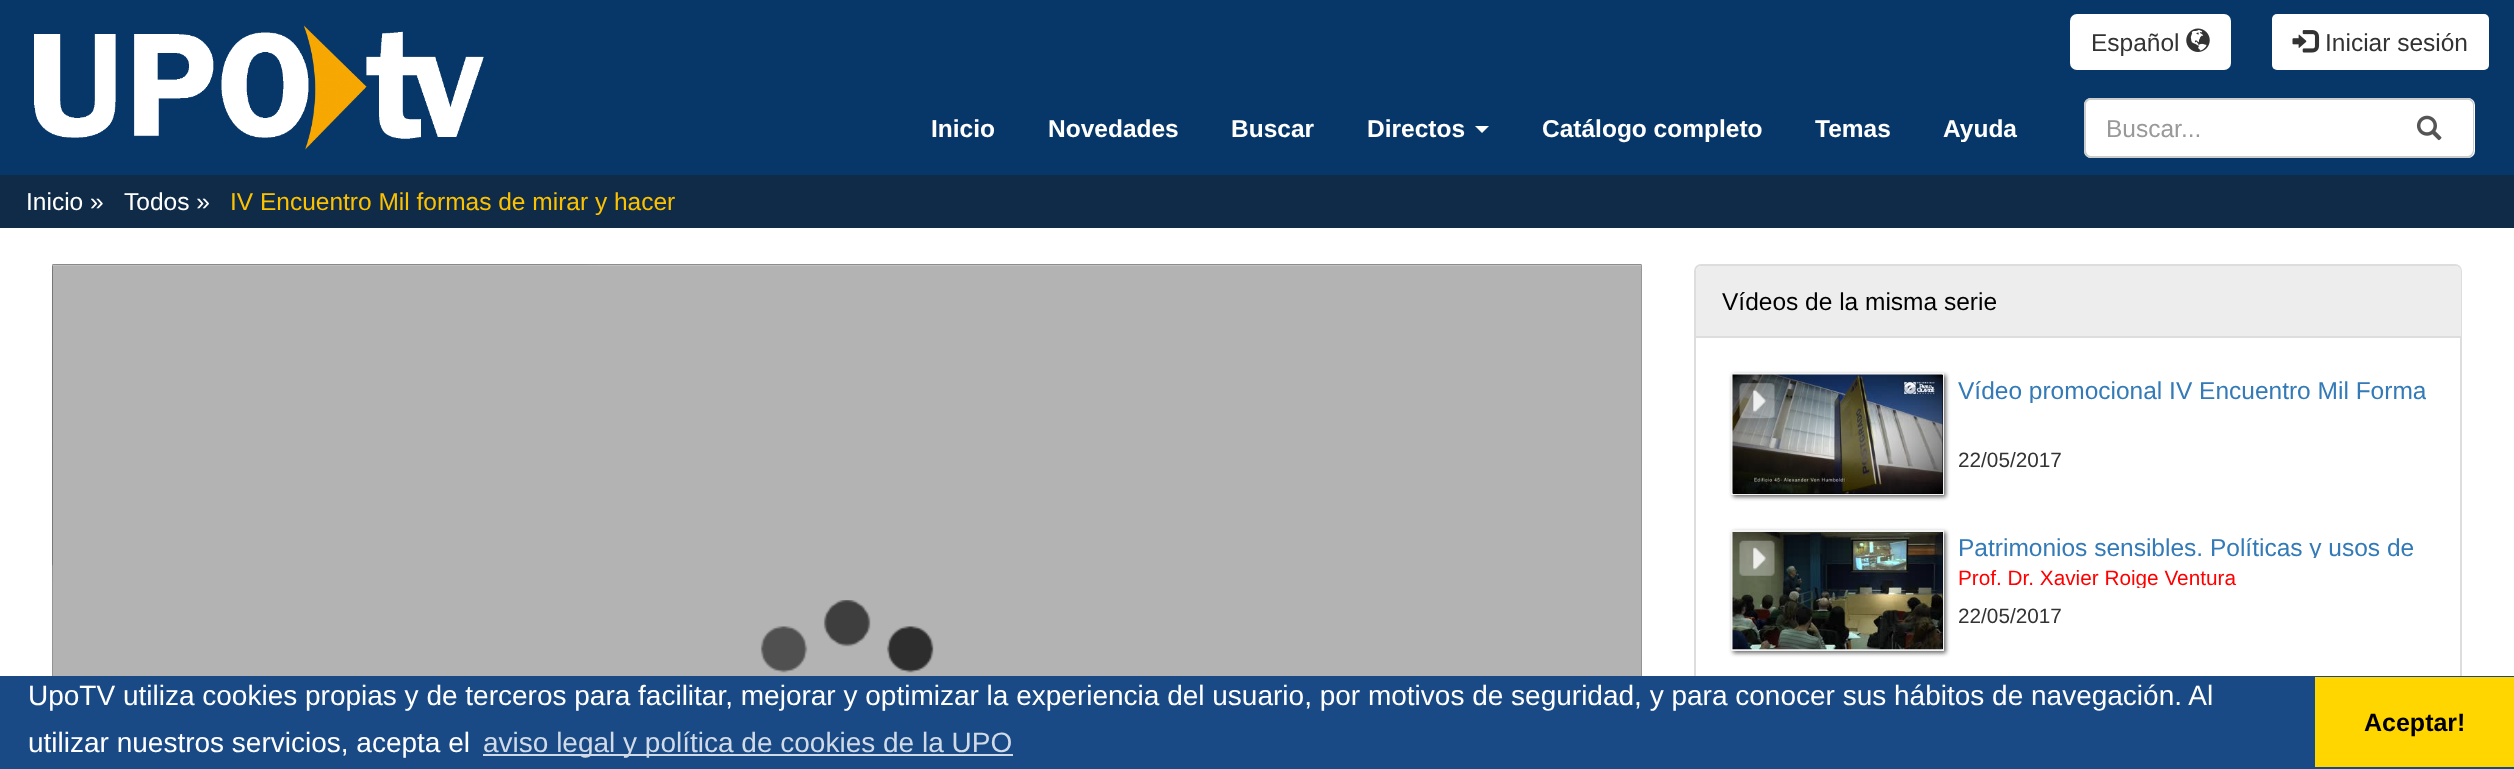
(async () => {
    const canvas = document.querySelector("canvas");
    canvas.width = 2514;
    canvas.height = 769;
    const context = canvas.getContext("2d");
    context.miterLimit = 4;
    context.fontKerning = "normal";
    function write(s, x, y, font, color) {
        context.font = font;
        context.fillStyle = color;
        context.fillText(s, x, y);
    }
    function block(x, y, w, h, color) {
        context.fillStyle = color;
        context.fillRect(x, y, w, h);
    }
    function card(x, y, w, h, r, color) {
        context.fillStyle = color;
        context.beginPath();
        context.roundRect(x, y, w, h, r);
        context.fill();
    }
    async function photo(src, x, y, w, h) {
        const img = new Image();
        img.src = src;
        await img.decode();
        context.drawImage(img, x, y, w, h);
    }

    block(0, 0, 2514, 769, "rgb(7, 55, 105)");
    await photo("media/1.png", 34, 25, 450, 125);
    card(2070, 14, 161, 56, 7, "rgb(255, 255, 255)");
    write("Español", 2091, 51, "24.5px Liberation Sans", "rgb(51, 51, 51)");
    await photo("media/2.png", 2186, 28, 24, 24);
    card(2272, 14, 217, 56, 5, "rgb(255, 255, 255)");
    await photo("media/3.png", 2292, 30, 28, 23);
    write("Iniciar sesión", 2325, 51, "24.5px Liberation Sans", "rgb(51, 51, 51)");
    write("Inicio", 931, 137, "bold 24.5px Liberation Sans", "rgb(255, 255, 255)");
    write("Novedades", 1048, 137, "bold 24.5px Liberation Sans", "rgb(255, 255, 255)");
    write("Buscar", 1231, 137, "bold 24.5px Liberation Sans", "rgb(255, 255, 255)");
    write("Directos", 1367, 137, "bold 24.5px Liberation Sans", "rgb(255, 255, 255)");
    context.beginPath();
    context.moveTo(1475, 126);
    context.lineTo(1489, 126);
    context.lineTo(1482, 133);
    context.closePath();
    context.fill();
    write("Catálogo completo", 1542, 137, "bold 24.5px Liberation Sans", "rgb(255, 255, 255)");
    write("Temas", 1815, 137, "bold 24.5px Liberation Sans", "rgb(255, 255, 255)");
    write("Ayuda", 1943, 137, "bold 24.5px Liberation Sans", "rgb(255, 255, 255)");
    context.beginPath();
    context.roundRect(2084, 98, 301, 60, [7, 0, 0, 7]);
    context.fill();
    context.fillStyle = "rgb(204, 204, 204)";
    context.beginPath();
    context.moveTo(2091, 98);
    context.lineTo(2385, 98);
    context.lineTo(2385, 158);
    context.lineTo(2091, 158);
    context.bezierCurveTo(2087, 158, 2084, 154, 2084, 150);
    context.lineTo(2084, 105);
    context.bezierCurveTo(2084, 101, 2087, 98, 2091, 98);
    context.closePath();
    context.moveTo(2091, 100);
    context.lineTo(2385, 100);
    context.lineTo(2385, 156);
    context.lineTo(2091, 156);
    context.bezierCurveTo(2088, 156, 2086, 153, 2086, 150);
    context.lineTo(2086, 105);
    context.bezierCurveTo(2086, 102, 2088, 100, 2091, 100);
    context.closePath();
    context.fill("evenodd");
    write("Buscar...", 2106, 137, "24.5px Liberation Sans", "rgb(153, 153, 153)");
    context.fillStyle = "rgb(255, 255, 255)";
    context.beginPath();
    context.roundRect(2385, 98, 90, 60, [0, 7, 7, 0]);
    context.fill();
    context.fillStyle = "rgb(204, 204, 204)";
    context.beginPath();
    context.moveTo(2385, 98);
    context.lineTo(2468, 98);
    context.bezierCurveTo(2471, 98, 2474, 101, 2474, 105);
    context.lineTo(2474, 150);
    context.bezierCurveTo(2474, 154, 2471, 158, 2468, 158);
    context.lineTo(2385, 158);
    context.closePath();
    context.moveTo(2385, 100);
    context.lineTo(2468, 100);
    context.bezierCurveTo(2470, 100, 2473, 102, 2473, 105);
    context.lineTo(2473, 150);
    context.bezierCurveTo(2473, 153, 2470, 156, 2468, 156);
    context.lineTo(2385, 156);
    context.closePath();
    context.fill("evenodd");
    await photo("media/4.png", 2416, 115, 26, 26);
    block(0, 175, 2514, 53, "rgb(15, 43, 71)");
    write("Inicio »", 26, 210, "24.5px Liberation Sans", "rgb(255, 255, 255)");
    write("Todos »", 124, 210, "24.5px Liberation Sans", "rgb(255, 255, 255)");
    write("IV Encuentro Mil formas de mirar y hacer", 230, 210, "24.5px Liberation Sans", "rgb(252, 193, 0)");
    block(0, 228, 2514, 448, "rgb(255, 255, 255)");
    await photo("media/5.png", 52, 264, 1590, 412);
    context.beginPath();
    context.roundRect(1695, 265, 766, 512, 6);
    context.strokeStyle = "rgb(221, 221, 221)";
    context.lineWidth = 2;
    context.stroke();
    context.fillStyle = "rgb(237, 237, 237)";
    context.beginPath();
    context.roundRect(1696, 266, 765, 72, [5, 5, 0, 0]);
    context.fill();
    block(1696, 336, 765, 2, "rgb(221, 221, 221)");
    write("Vídeos de la misma serie", 1722, 310, "24.5px Liberation Sans", "rgb(0, 0, 0)");
    context.fillStyle = "rgb(102, 102, 102)";
    context.filter = "blur(2px)";
    context.beginPath();
    context.rect(1733, 375, 213, 122);
    context.fill();
    context.filter = "none";
    block(1731, 373, 213, 122, "rgb(243, 243, 243)");
    block(1733, 375, 210, 119, "rgb(0, 0, 0)");
    await photo("media/6.png", 1732, 374, 211, 120);
    await photo("media/7.png", 1739, 383, 36, 36);
    context.save();
    context.beginPath();
    context.rect(1958, 373, 468, 30);
    context.clip();
    write("Vídeo promocional IV Encuentro Mil Forma", 1958, 399, "24.5px Liberation Sans", "rgb(51, 122, 183)");
    context.restore();
    write("22/05/2017", 1958, 467, "20.75px Liberation Sans", "rgb(51, 51, 51)");
    context.fillStyle = "rgb(102, 102, 102)";
    context.filter = "blur(2px)";
    context.beginPath();
    context.rect(1733, 532, 213, 121);
    context.fill();
    context.filter = "none";
    block(1731, 530, 213, 121, "rgb(243, 243, 243)");
    block(1942, 532, 1, 117, "rgb(0, 0, 0)");
    await photo("media/8.png", 1732, 532, 211, 118);
    await photo("media/9.png", 1739, 540, 36, 36);
    context.save();
    context.beginPath();
    context.rect(1958, 530, 468, 28);
    context.clip();
    write("Patrimonios sensibles. Políticas y usos de", 1958, 556, "24.5px Liberation Sans", "rgb(51, 122, 183)");
    context.restore();
    context.save();
    context.beginPath();
    context.rect(1958, 558, 468, 30);
    context.clip();
    write("Prof. Dr. Xavier Roige Ventura", 1958, 585, "20.75px Liberation Sans", "rgb(255, 0, 0)");
    context.restore();
    write("22/05/2017", 1958, 623, "20.75px Liberation Sans", "rgb(51, 51, 51)");
    block(0, 676, 2514, 93, "rgb(25, 74, 133)");
    write("UpoTV utiliza cookies propias y de terceros para facilitar, mejorar y optimizar la experiencia del usuario, por motivos de seguridad, y para conocer sus hábitos de navegación. Al", 28, 705, "28px Liberation Sans", "rgb(255, 255, 255)");
    write("utilizar nuestros servicios, acepta el", 28, 752, "28px Liberation Sans", "rgb(255, 255, 255)");
    block(483, 754, 530, 2, "rgb(209, 219, 231)");
    write("aviso legal y política de cookies de la UPO", 483, 752, "28px Liberation Sans", "rgb(209, 219, 231)");
    block(2315, 677, 199, 90, "rgb(255, 214, 0)");
    write("Aceptar!", 2364, 731, "bold 25px Liberation Sans", "rgb(0, 0, 0)");
})();
